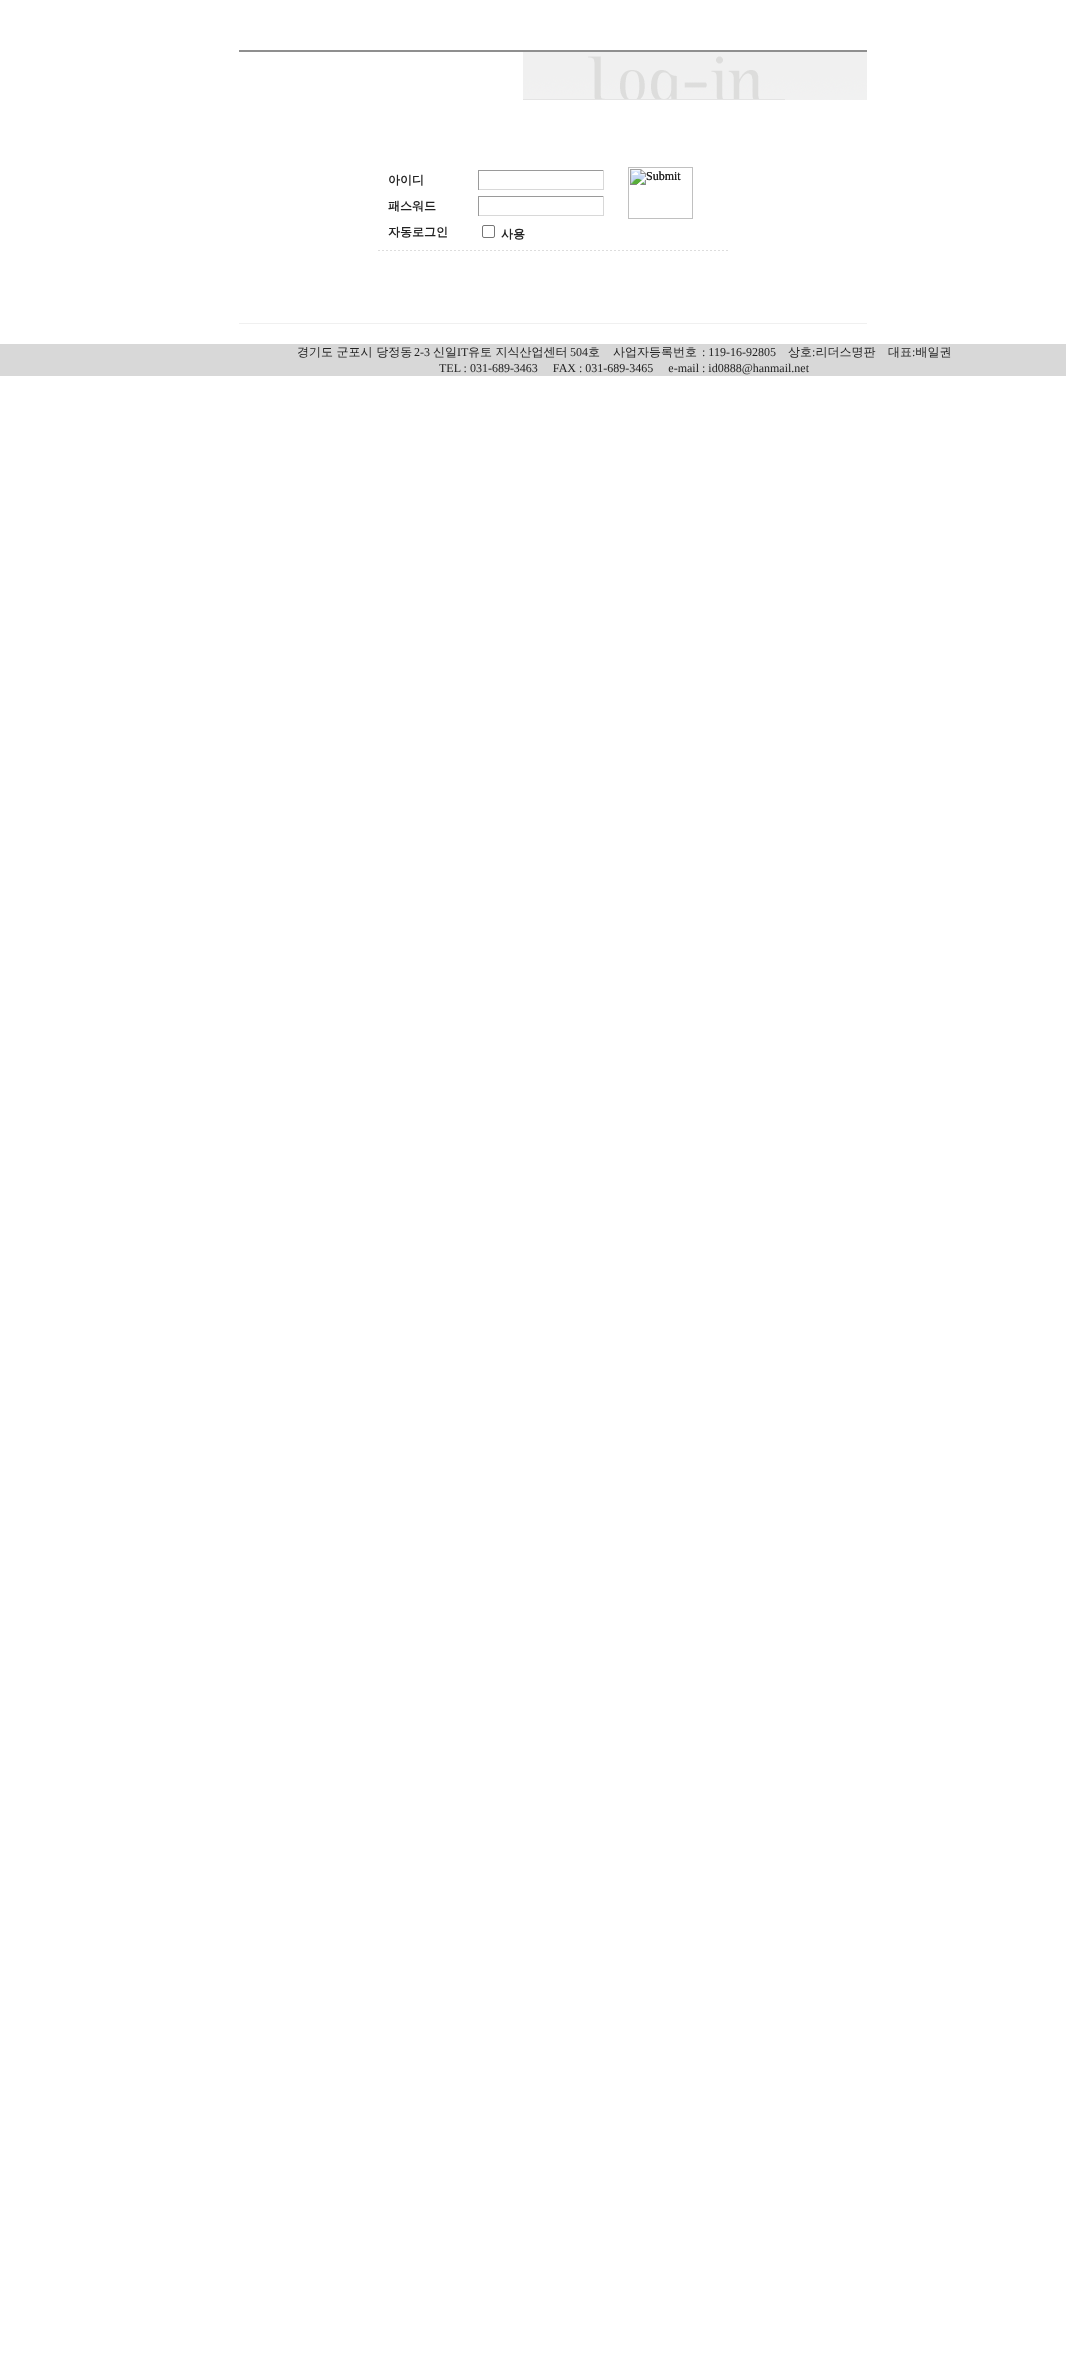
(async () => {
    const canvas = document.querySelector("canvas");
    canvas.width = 1066;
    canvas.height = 2371;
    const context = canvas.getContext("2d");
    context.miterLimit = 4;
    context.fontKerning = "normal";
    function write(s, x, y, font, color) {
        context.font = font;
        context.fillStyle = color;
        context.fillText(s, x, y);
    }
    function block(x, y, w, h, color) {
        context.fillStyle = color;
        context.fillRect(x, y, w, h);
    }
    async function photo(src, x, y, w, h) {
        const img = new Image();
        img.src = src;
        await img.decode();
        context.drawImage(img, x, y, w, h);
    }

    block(0, 0, 1066, 2371, "rgb(255, 255, 255)");
    block(239, 50, 628, 2, "rgb(143, 143, 143)");
    await photo("media/1.png", 523, 52, 344, 48);
    write("아이디", 388, 184, "bold 12px WenQuanYi Zen Hei", "rgb(34, 34, 34)");
    block(478, 170, 126, 1, "rgb(154, 154, 154)");
    block(603, 170, 1, 20, "rgb(216, 216, 216)");
    block(478, 189, 126, 1, "rgb(216, 216, 216)");
    block(478, 170, 1, 20, "rgb(154, 154, 154)");
    write("패스워드", 388, 210, "bold 12px WenQuanYi Zen Hei", "rgb(34, 34, 34)");
    block(478, 196, 126, 1, "rgb(154, 154, 154)");
    block(603, 196, 1, 20, "rgb(216, 216, 216)");
    block(478, 215, 126, 1, "rgb(216, 216, 216)");
    block(478, 196, 1, 20, "rgb(154, 154, 154)");
    write("자동로그인", 388, 236, "bold 12px WenQuanYi Zen Hei", "rgb(34, 34, 34)");
    context.beginPath();
    context.roundRect(482.5, 225.5, 12, 12, 1.5);
    context.strokeStyle = "rgb(118, 118, 118)";
    context.stroke();
    write("사용", 501, 238, "bold 12px WenQuanYi Zen Hei", "rgb(34, 34, 34)");
    await photo("media/2.png", 628, 167, 65, 52);
    write("Submit", 646, 180, "12px Liberation Serif", "rgb(34, 34, 34)");
    await photo("media/3.png", 378, 250, 350, 1);
    block(239, 323, 628, 1, "rgb(240, 240, 240)");
    block(0, 344, 1066, 32, "rgb(216, 216, 216)");
    write("경기도 군포시 당정동", 297, 356, "500 12px WenQuanYi Zen Hei", "rgb(34, 34, 34)");
    write("2-3", 414, 356, "12px Liberation Serif", "rgb(34, 34, 34)");
    write("신일", 433, 356, "500 12px WenQuanYi Zen Hei", "rgb(34, 34, 34)");
    write("IT", 457, 356, "12px Liberation Serif", "rgb(34, 34, 34)");
    write("유토 지식산업센터", 468, 356, "500 12px WenQuanYi Zen Hei", "rgb(34, 34, 34)");
    write("504", 570, 356, "12px Liberation Serif", "rgb(34, 34, 34)");
    write("호", 588, 356, "500 12px WenQuanYi Zen Hei", "rgb(34, 34, 34)");
    write("사업자등록번호", 613, 356, "500 12px WenQuanYi Zen Hei", "rgb(34, 34, 34)");
    write(": 119-16-92805", 702, 356, "12px Liberation Serif", "rgb(34, 34, 34)");
    write("상호 리더스명판", 788, 356, "500 12px WenQuanYi Zen Hei", "rgb(34, 34, 34)");
    write("대표 배일권", 888, 356, "500 12px WenQuanYi Zen Hei", "rgb(34, 34, 34)");
    write(":", 812, 356, "12px Liberation Serif", "rgb(34, 34, 34)");
    write(":", 912, 356, "12px Liberation Serif", "rgb(34, 34, 34)");
    write("TEL : 031-689-3463     FAX : 031-689-3465     e-mail : id0888@hanmail.net", 439, 372, "12px Liberation Serif", "rgb(34, 34, 34)");
})();
